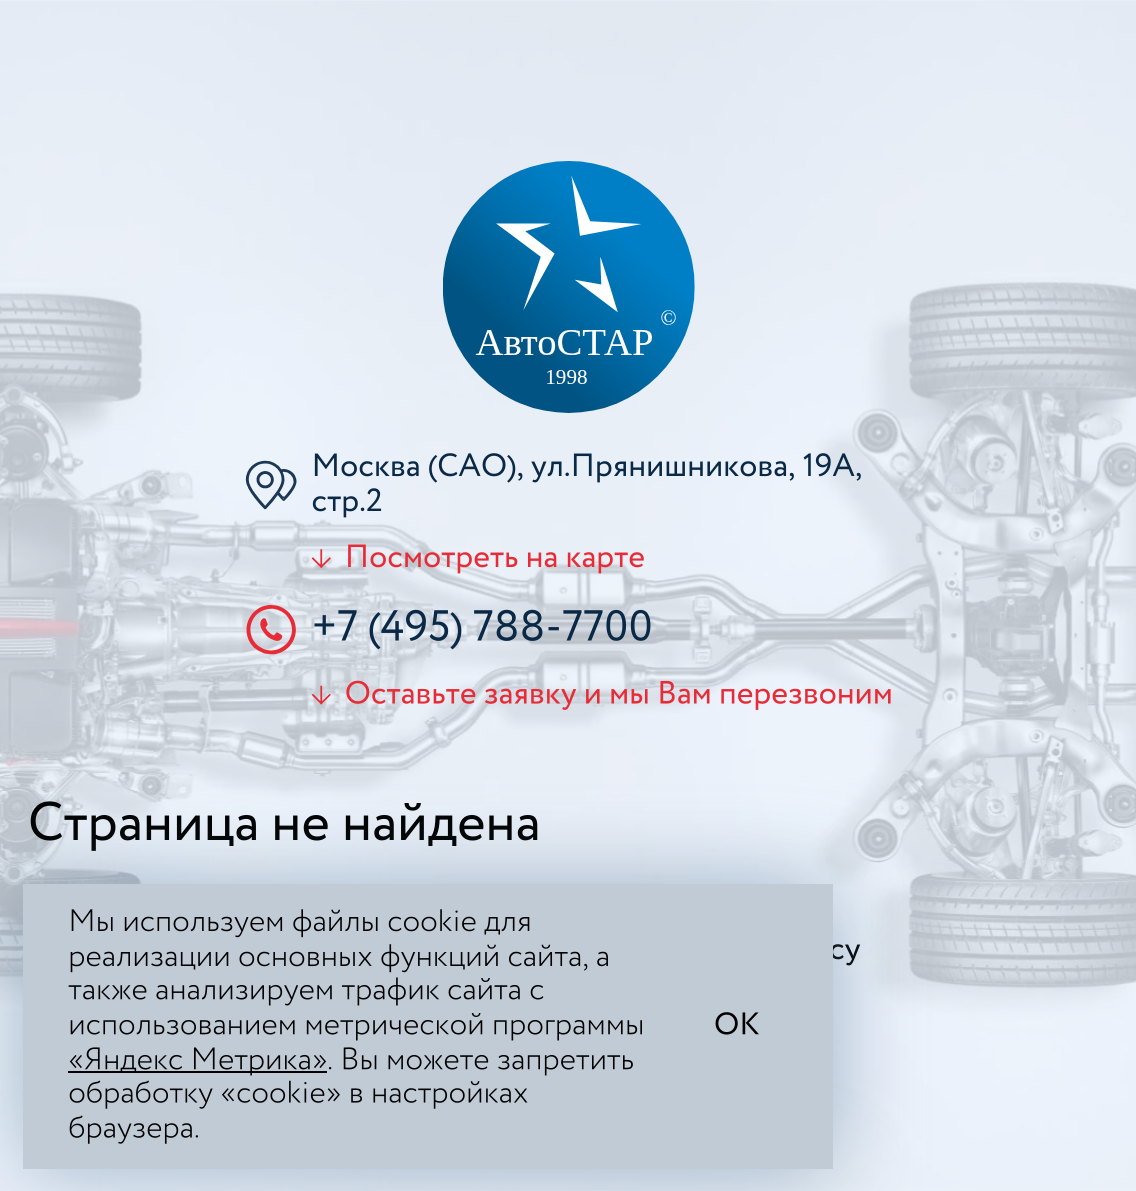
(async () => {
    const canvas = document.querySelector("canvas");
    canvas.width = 1136;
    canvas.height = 1191;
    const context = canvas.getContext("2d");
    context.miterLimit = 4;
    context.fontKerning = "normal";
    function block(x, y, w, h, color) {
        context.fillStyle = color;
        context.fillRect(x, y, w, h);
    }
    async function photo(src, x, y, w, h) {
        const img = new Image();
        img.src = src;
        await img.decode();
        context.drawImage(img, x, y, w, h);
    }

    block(0, 0, 1136, 1191, "rgb(236, 242, 251)");
    await photo("media/1.png", 0, 0, 1136, 1191);
    await photo("media/2.png", 30, 801, 226, 50);
    await photo("media/3.png", 275, 803, 263, 43);
    await photo("media/4.png", 833, 944, 28, 22);
    await photo("media/5.png", 443, 161, 252, 252);
    await photo("media/6.png", 245, 460, 52, 50);
    await photo("media/7.png", 314, 453, 547, 30);
    await photo("media/8.png", 312, 488, 70, 30);
    await photo("media/9.png", 311, 549, 20, 19);
    await photo("media/10.png", 348, 544, 296, 30);
    await photo("media/11.png", 246, 605, 50, 50);
    await photo("media/12.png", 314, 609, 337, 41);
    await photo("media/13.png", 311, 685, 20, 20);
    await photo("media/14.png", 346, 680, 545, 30);
    context.fillStyle = "rgba(74, 111, 140, 0.48)";
    context.filter = "blur(44px)";
    context.beginPath();
    context.rect(23, 884, 810, 285);
    context.fill();
    context.filter = "none";
    block(23, 884, 810, 285, "rgb(193, 203, 214)");
    await photo("media/15.png", 71, 909, 459, 29);
    await photo("media/16.png", 70, 944, 538, 29);
    await photo("media/17.png", 68, 977, 476, 29);
    await photo("media/18.png", 70, 1013, 572, 28);
    block(68, 1071, 259, 2, "rgb(0, 0, 0)");
    await photo("media/19.png", 69, 1047, 257, 29);
    await photo("media/20.png", 329, 1047, 304, 29);
    await photo("media/21.png", 69, 1080, 459, 29);
    await photo("media/22.png", 69, 1115, 129, 29);
    await photo("media/23.png", 715, 1012, 44, 23);
})();
